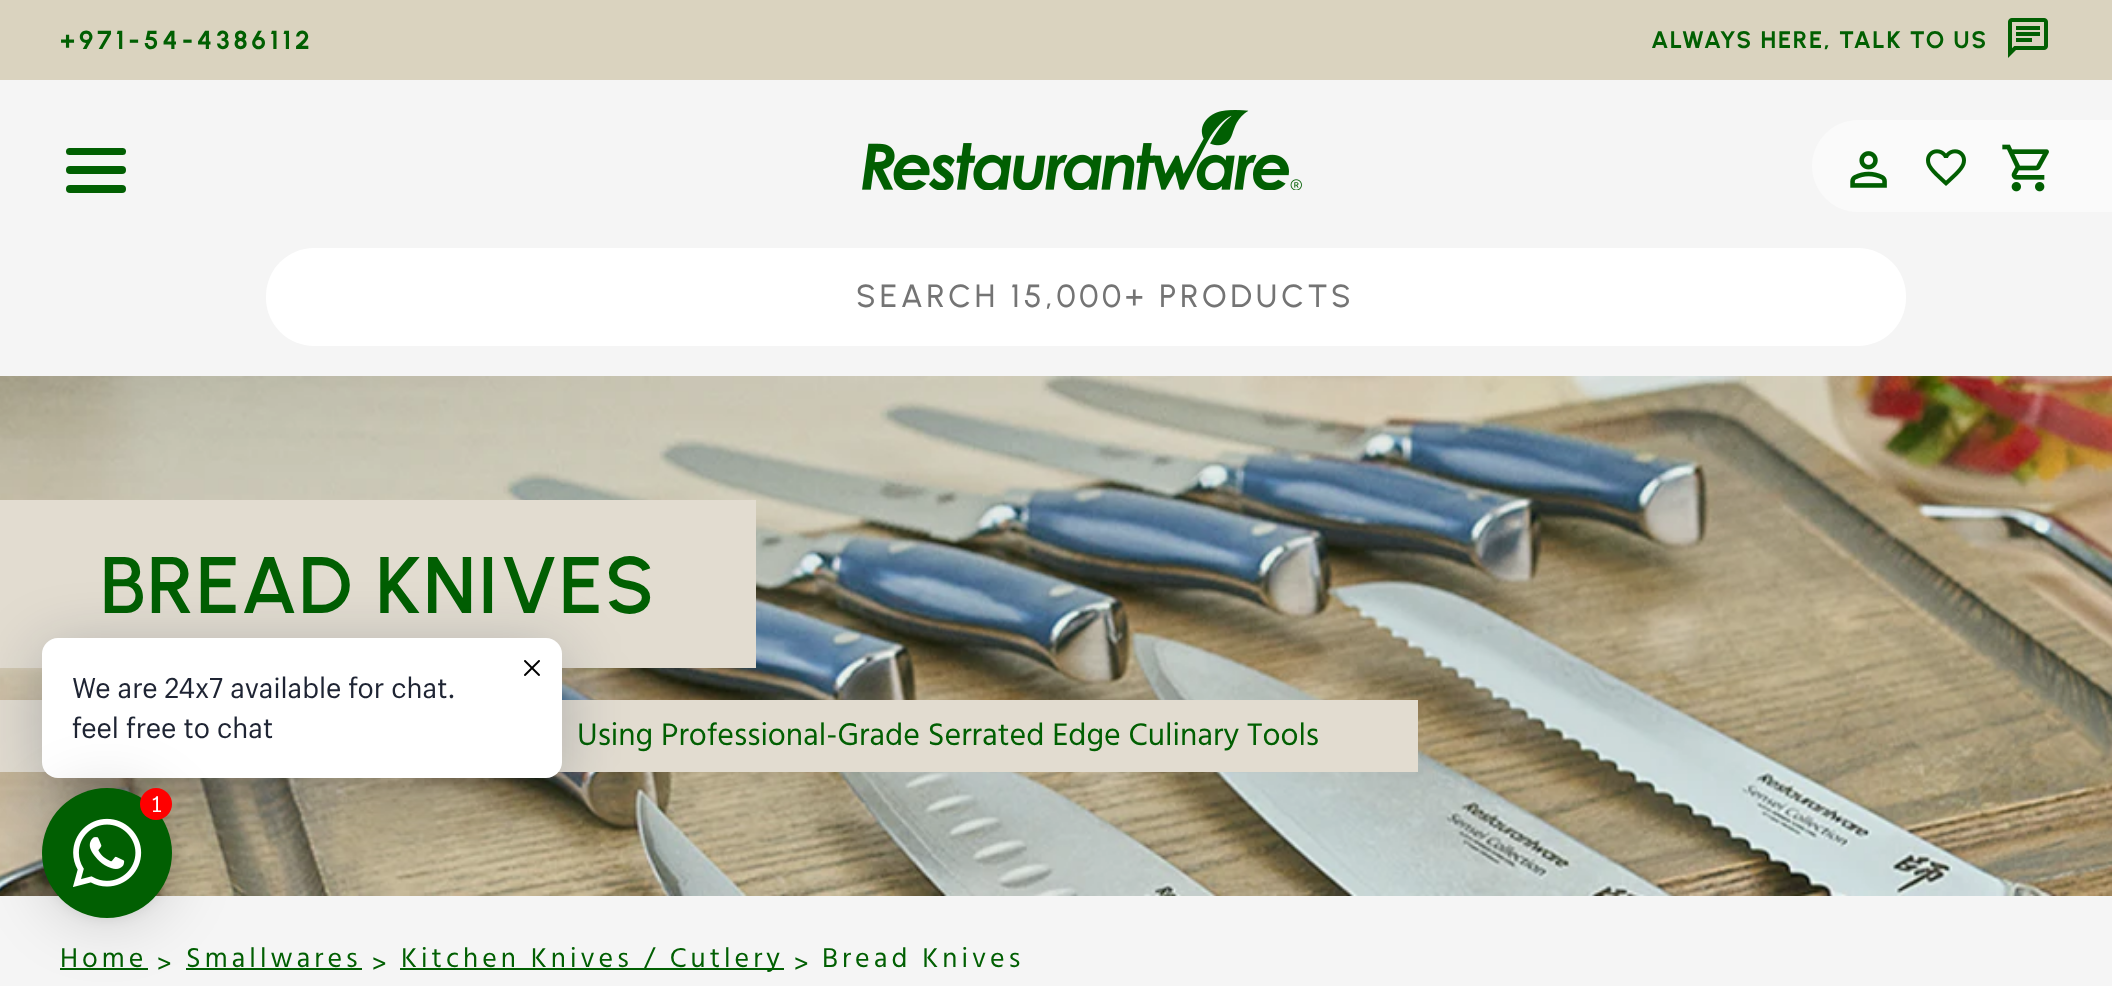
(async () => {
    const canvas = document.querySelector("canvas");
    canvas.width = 2112;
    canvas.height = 986;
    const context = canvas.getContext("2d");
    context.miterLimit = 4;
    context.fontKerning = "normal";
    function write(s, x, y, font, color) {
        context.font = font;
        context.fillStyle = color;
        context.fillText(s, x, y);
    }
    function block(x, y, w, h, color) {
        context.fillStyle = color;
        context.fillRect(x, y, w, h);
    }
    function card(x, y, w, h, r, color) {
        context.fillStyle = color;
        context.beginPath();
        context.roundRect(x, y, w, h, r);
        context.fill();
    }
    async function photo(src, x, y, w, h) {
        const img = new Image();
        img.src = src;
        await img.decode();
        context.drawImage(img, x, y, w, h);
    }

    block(0, 0, 2112, 986, "rgb(245, 245, 245)");
    block(0, 0, 2112, 80, "rgb(218, 211, 191)");
    context.letterSpacing = "4px";
    write("+971-54-4386112", 60, 49, "bold 26px Urbanist", "rgb(1, 95, 2)");
    context.letterSpacing = "1.7px";
    write("ALWAYS HERE, TALK TO US", 1651, 48, "bold 24px Urbanist", "rgb(1, 95, 2)");
    await photo("media/1.png", 2008, 18, 40, 40);
    card(66, 148, 60, 7, 3.5, "rgb(1, 95, 2)");
    card(66, 166, 60, 8, 4, "rgb(1, 95, 2)");
    card(66, 185, 60, 8, 4, "rgb(1, 95, 2)");
    await photo("media/2.png", 862, 110, 440, 80);
    context.fillStyle = "rgb(250, 250, 250)";
    context.beginPath();
    context.roundRect(1812, 120, 300, 92, [46, 0, 0, 46]);
    context.fill();
    await photo("media/3.png", 1850, 151, 37, 37);
    await photo("media/4.png", 1926, 149, 40, 37);
    await photo("media/5.png", 2002, 144, 47, 48);
    card(266, 248, 1640, 98, 48, "rgb(255, 255, 255)");
    context.letterSpacing = "4px";
    write("SEARCH 15,000+ PRODUCTS", 856, 307, "500 32px Urbanist", "rgb(116, 116, 116)");
    await photo("media/6.png", 0, 376, 2112, 520);
    block(0, 500, 756, 168, "rgb(226, 220, 208)");
    context.letterSpacing = "2px";
    write("BREAD KNIVES", 100, 613, "600 80px Urbanist", "rgb(1, 95, 2)");
    block(0, 700, 1418, 72, "rgb(226, 220, 208)");
    context.letterSpacing = "0px";
    write("Using Professional-Grade Serrated Edge Culinary Tools", 577, 745, "32px Hind Mysuru", "rgb(1, 95, 2)");
    context.letterSpacing = "4px";
    write("Home", 60, 967, "28px Hind Mysuru", "rgb(1, 95, 2)");
    block(60, 968, 88, 2, "rgb(1, 95, 2)");
    write(">", 157, 973, "28px Hind Mysuru", "rgb(1, 95, 2)");
    write("Smallwares", 186, 967, "28px Hind Mysuru", "rgb(1, 95, 2)");
    block(186, 968, 176, 2, "rgb(1, 95, 2)");
    write(">", 372, 973, "28px Hind Mysuru", "rgb(1, 95, 2)");
    block(400, 968, 384, 2, "rgb(1, 95, 2)");
    write("Kitchen Knives / Cutlery", 401, 967, "28px Hind Mysuru", "rgb(1, 95, 2)");
    write(">", 794, 973, "28px Hind Mysuru", "rgb(1, 95, 2)");
    write("Bread Knives", 822, 967, "28px Hind Mysuru", "rgb(1, 95, 2)");
    context.fillStyle = "rgba(0, 18, 46, 0.24)";
    context.filter = "blur(32px)";
    context.beginPath();
    context.roundRect(42, 650, 520, 140, 16);
    context.fill();
    context.filter = "none";
    card(42, 638, 520, 140, 16, "rgb(255, 255, 255)");
    await photo("media/7.png", 524, 660, 16, 16);
    context.letterSpacing = "0px";
    write("We are 24x7 available for chat.", 72, 698, "28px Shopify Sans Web", "rgb(30, 36, 51)");
    write("feel free to chat", 72, 738, "28px Shopify Sans Web", "rgb(30, 36, 51)");
    context.fillStyle = "rgba(0, 0, 0, 0.16)";
    context.filter = "blur(32px)";
    context.beginPath();
    context.roundRect(42, 792, 130, 130, 65);
    context.fill();
    context.filter = "none";
    context.fillStyle = "rgba(0, 0, 0, 0.06)";
    context.filter = "blur(6px)";
    context.beginPath();
    context.roundRect(42, 790, 130, 130, 65);
    context.fill();
    context.filter = "none";
    context.fillStyle = "rgb(1, 95, 2)";
    context.beginPath();
    context.arc(107, 853, 65, 0, Math.PI * 2);
    context.fill();
    await photo("media/8.png", 73, 818, 69, 69);
    context.fillStyle = "rgb(255, 0, 0)";
    context.beginPath();
    context.arc(156, 804, 16, 0, Math.PI * 2);
    context.fill();
    write("1", 152, 812, "22px Shopify Sans Web", "rgb(255, 255, 255)");
})();
